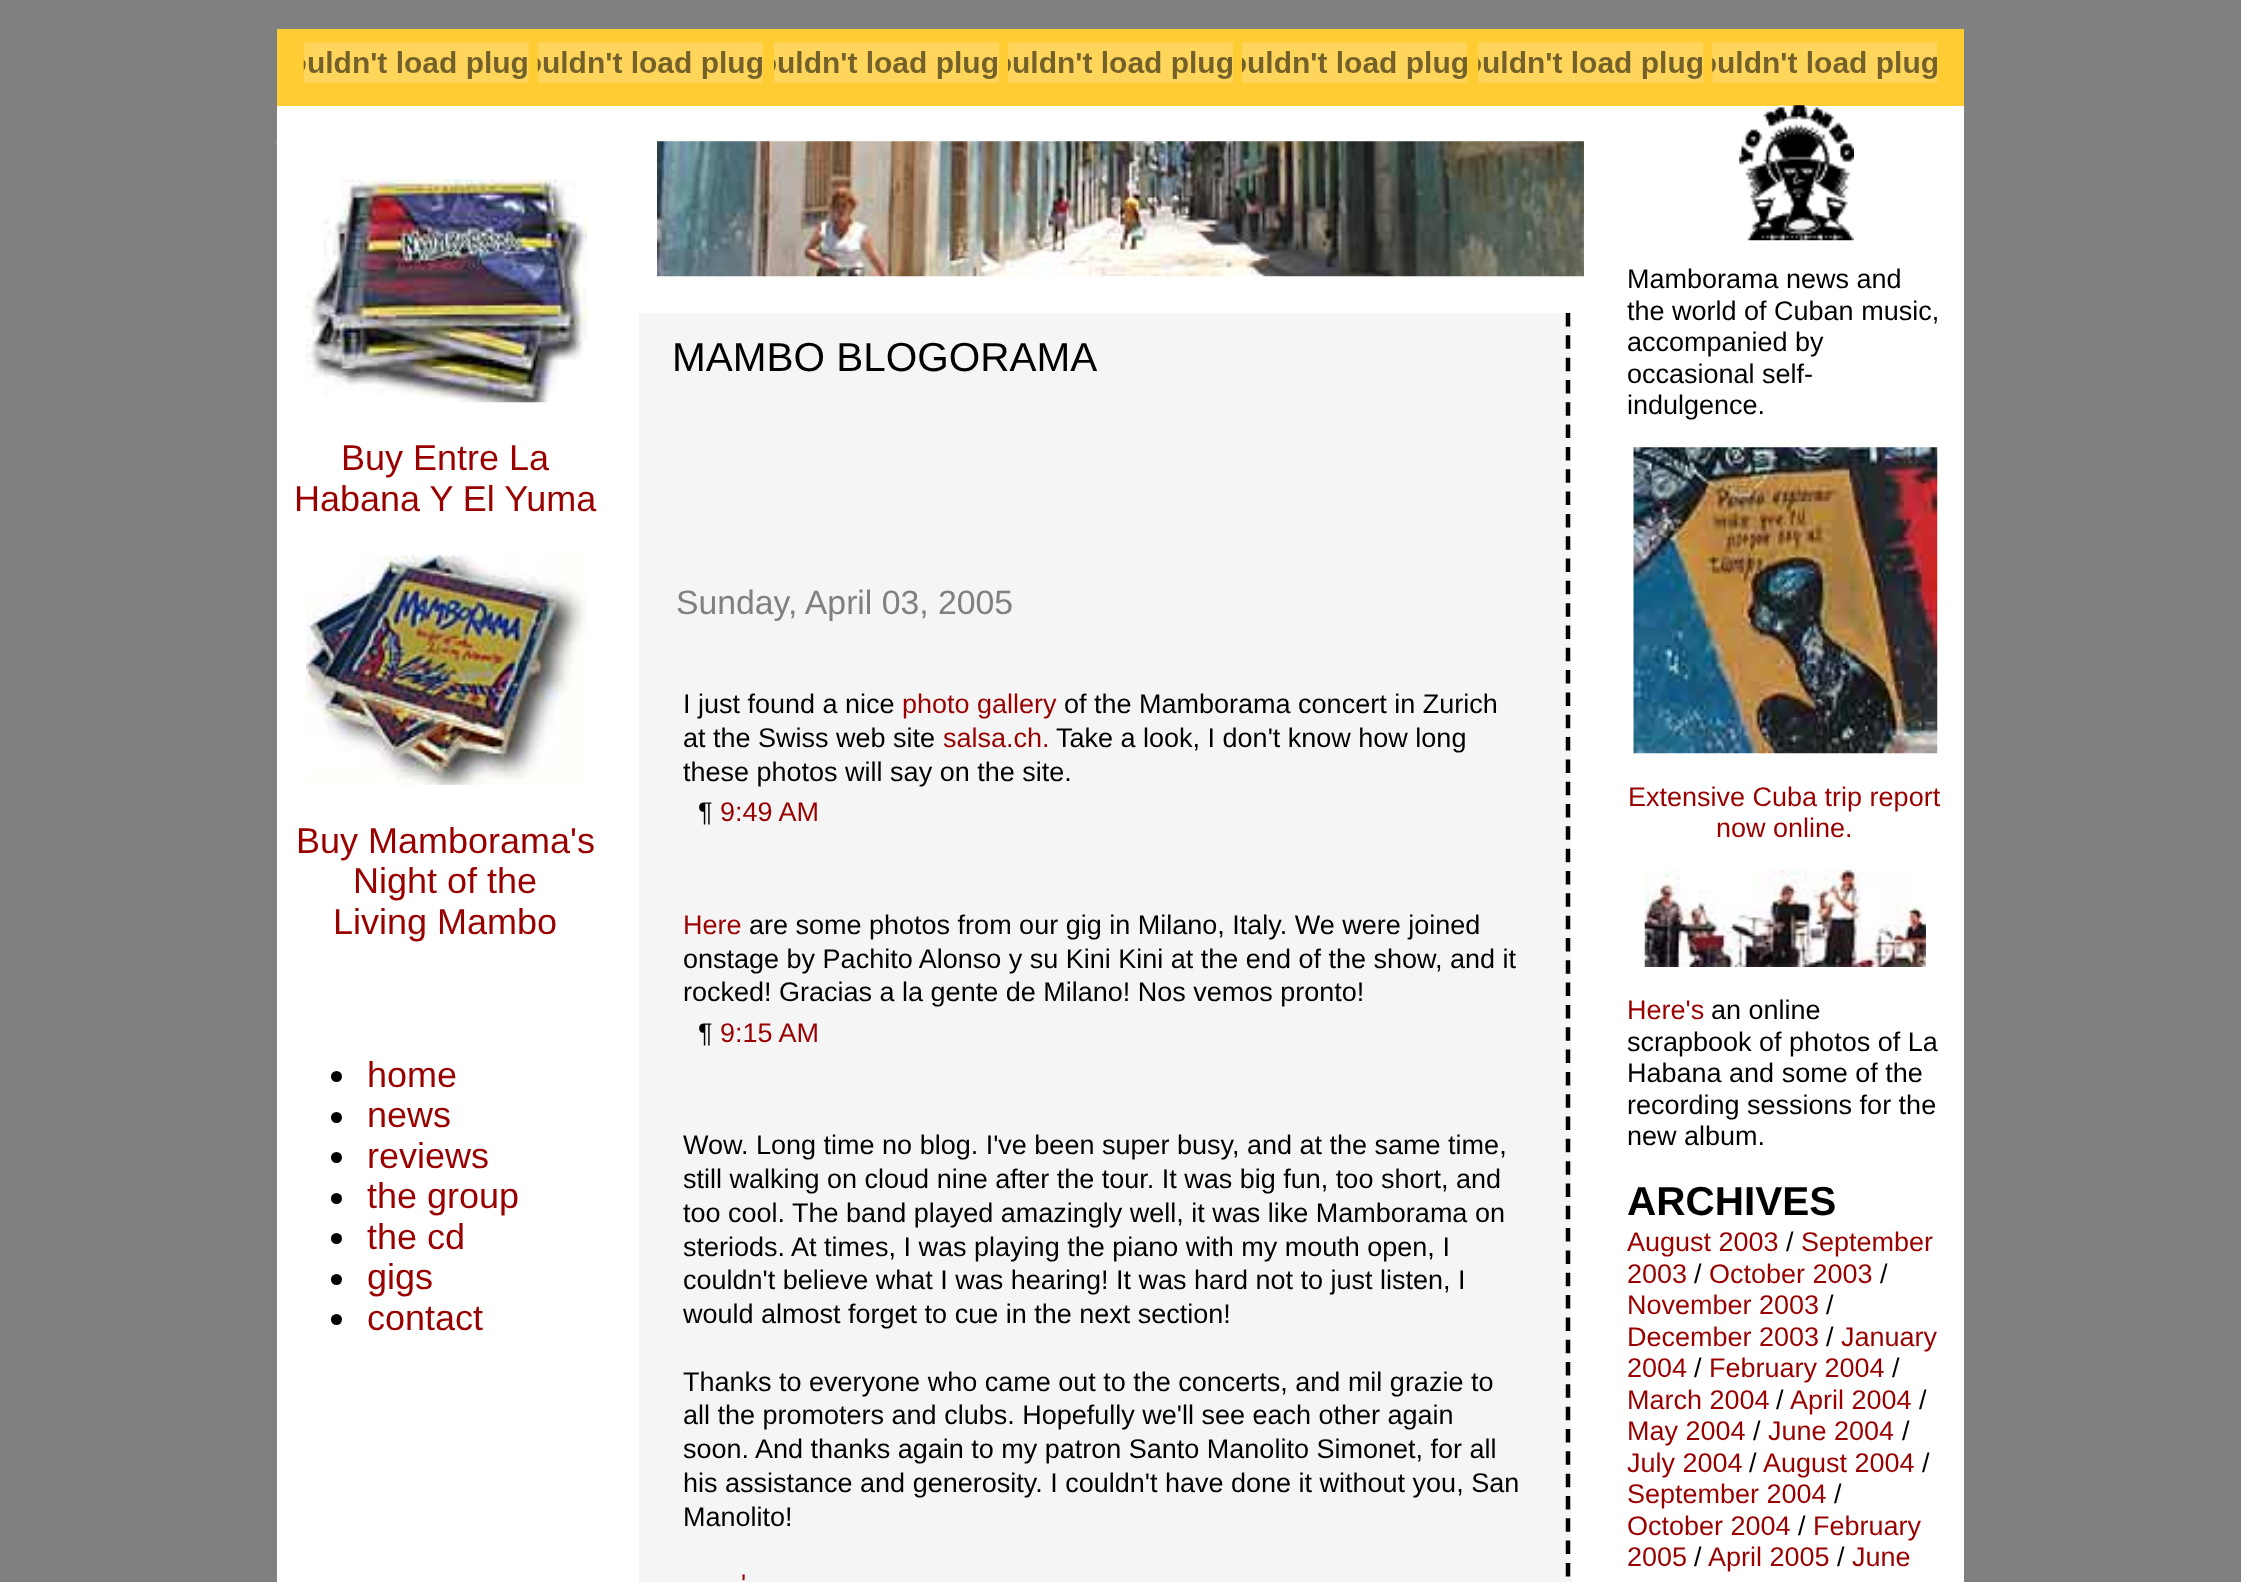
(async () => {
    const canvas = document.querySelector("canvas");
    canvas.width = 2241;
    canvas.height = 1582;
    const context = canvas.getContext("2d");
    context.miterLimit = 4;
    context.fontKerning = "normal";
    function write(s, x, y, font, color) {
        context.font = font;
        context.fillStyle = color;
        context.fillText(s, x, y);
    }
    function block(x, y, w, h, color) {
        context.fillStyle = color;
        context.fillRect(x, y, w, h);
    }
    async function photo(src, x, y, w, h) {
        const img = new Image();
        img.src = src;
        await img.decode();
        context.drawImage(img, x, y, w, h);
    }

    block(0, 0, 2241, 1582, "rgb(128, 128, 128)");
    block(277, 29, 1687, 77, "rgb(255, 204, 51)");
    await photo("media/1.png", 303, 42, 226, 41);
    await photo("media/2.png", 537, 42, 226, 41);
    await photo("media/3.png", 774, 42, 225, 41);
    await photo("media/4.png", 1008, 42, 225, 41);
    await photo("media/5.png", 1242, 42, 225, 41);
    await photo("media/6.png", 1478, 42, 226, 41);
    await photo("media/7.png", 1712, 42, 226, 41);
    block(277, 106, 1687, 1476, "rgb(255, 255, 255)");
    await photo("media/8.png", 276, 141, 1, 3);
    await photo("media/9.png", 306, 179, 282, 224);
    write("Buy Entre La", 341, 470, "36px Liberation Sans", "rgb(153, 0, 0)");
    write("Habana Y El Yuma", 294, 511, "36px Liberation Sans", "rgb(153, 0, 0)");
    await photo("media/10.png", 306, 555, 281, 230);
    write("Buy Mamborama's", 296, 853, "36px Liberation Sans", "rgb(153, 0, 0)");
    write("Night of the", 353, 893, "36px Liberation Sans", "rgb(153, 0, 0)");
    write("Living Mambo", 333, 934, "36px Liberation Sans", "rgb(153, 0, 0)");
    context.fillStyle = "rgb(0, 0, 0)";
    context.beginPath();
    context.arc(336.5, 1076.5, 5.5, 0, Math.PI * 2);
    context.fill();
    write("home", 367, 1087, "36px Liberation Sans", "rgb(153, 0, 0)");
    context.fillStyle = "rgb(0, 0, 0)";
    context.beginPath();
    context.arc(336.5, 1117.5, 5.5, 0, Math.PI * 2);
    context.fill();
    write("news", 367, 1127, "36px Liberation Sans", "rgb(153, 0, 0)");
    context.fillStyle = "rgb(0, 0, 0)";
    context.beginPath();
    context.arc(336.5, 1157.5, 5.5, 0, Math.PI * 2);
    context.fill();
    write("reviews", 367, 1168, "36px Liberation Sans", "rgb(153, 0, 0)");
    context.fillStyle = "rgb(0, 0, 0)";
    context.beginPath();
    context.arc(336.5, 1198.5, 5.5, 0, Math.PI * 2);
    context.fill();
    write("the group", 367, 1208, "36px Liberation Sans", "rgb(153, 0, 0)");
    context.fillStyle = "rgb(0, 0, 0)";
    context.beginPath();
    context.arc(336.5, 1238.5, 5.5, 0, Math.PI * 2);
    context.fill();
    write("the cd", 367, 1249, "36px Liberation Sans", "rgb(153, 0, 0)");
    context.fillStyle = "rgb(0, 0, 0)";
    context.beginPath();
    context.arc(336.5, 1279.5, 5.5, 0, Math.PI * 2);
    context.fill();
    write("gigs", 367, 1289, "36px Liberation Sans", "rgb(153, 0, 0)");
    context.fillStyle = "rgb(0, 0, 0)";
    context.beginPath();
    context.arc(336.5, 1319.5, 5.5, 0, Math.PI * 2);
    context.fill();
    write("contact", 367, 1330, "36px Liberation Sans", "rgb(153, 0, 0)");
    await photo("media/11.png", 657, 141, 927, 136);
    block(639, 313, 932, 1269, "rgb(245, 245, 245)");
    context.beginPath();
    context.moveTo(1568, 313);
    context.lineTo(1568, 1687.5);
    context.strokeStyle = "rgb(0, 0, 0)";
    context.lineWidth = 4.5;
    context.setLineDash([13.5, 8.82]);
    context.stroke();
    write("MAMBO BLOGORAMA", 672, 371, "40.5px Liberation Sans", "rgb(0, 0, 0)");
    write("Sunday, April 03, 2005", 676, 614, "33.75px Liberation Sans", "rgb(128, 128, 128)");
    write("I just found a nice", 683, 713, "27px Liberation Sans", "rgb(0, 0, 0)");
    write("photo gallery", 902, 713, "27px Liberation Sans", "rgb(153, 0, 0)");
    write("of the Mamborama concert in Zurich", 1064, 713, "27px Liberation Sans", "rgb(0, 0, 0)");
    write("at the Swiss web site", 683, 747, "27px Liberation Sans", "rgb(0, 0, 0)");
    write("salsa.ch.", 943, 747, "27px Liberation Sans", "rgb(153, 0, 0)");
    write("Take a look, I don't know how long", 1056, 747, "27px Liberation Sans", "rgb(0, 0, 0)");
    write("these photos will say on the site.", 683, 781, "27px Liberation Sans", "rgb(0, 0, 0)");
    write("¶", 698, 821, "27px Liberation Sans", "rgb(0, 0, 0)");
    write("9:49 AM", 720, 821, "27px Liberation Sans", "rgb(153, 0, 0)");
    write("Here", 683, 934, "27px Liberation Sans", "rgb(153, 0, 0)");
    write("are some photos from our gig in Milano, Italy. We were joined", 749, 934, "27px Liberation Sans", "rgb(0, 0, 0)");
    write("onstage by Pachito Alonso y su Kini Kini at the end of the show, and it", 683, 968, "27px Liberation Sans", "rgb(0, 0, 0)");
    write("rocked! Gracias a la gente de Milano! Nos vemos pronto!", 683, 1001, "27px Liberation Sans", "rgb(0, 0, 0)");
    write("¶", 698, 1042, "27px Liberation Sans", "rgb(0, 0, 0)");
    write("9:15 AM", 720, 1042, "27px Liberation Sans", "rgb(153, 0, 0)");
    write("Wow. Long time no blog. I've been super busy, and at the same time,", 683, 1154, "27px Liberation Sans", "rgb(0, 0, 0)");
    write("still walking on cloud nine after the tour. It was big fun, too short, and", 683, 1188, "27px Liberation Sans", "rgb(0, 0, 0)");
    write("too cool. The band played amazingly well, it was like Mamborama on", 683, 1222, "27px Liberation Sans", "rgb(0, 0, 0)");
    write("steriods. At times, I was playing the piano with my mouth open, I", 683, 1256, "27px Liberation Sans", "rgb(0, 0, 0)");
    write("couldn't believe what I was hearing! It was hard not to just listen, I", 683, 1289, "27px Liberation Sans", "rgb(0, 0, 0)");
    write("would almost forget to cue in the next section!", 683, 1323, "27px Liberation Sans", "rgb(0, 0, 0)");
    write("Thanks to everyone who came out to the concerts, and mil grazie to", 683, 1391, "27px Liberation Sans", "rgb(0, 0, 0)");
    write("all the promoters and clubs. Hopefully we'll see each other again", 683, 1424, "27px Liberation Sans", "rgb(0, 0, 0)");
    write("soon. And thanks again to my patron Santo Manolito Simonet, for all", 683, 1458, "27px Liberation Sans", "rgb(0, 0, 0)");
    write("his assistance and generosity. I couldn't have done it without you, San", 683, 1492, "27px Liberation Sans", "rgb(0, 0, 0)");
    write("Manolito!", 683, 1526, "27px Liberation Sans", "rgb(0, 0, 0)");
    write("'", 741, 1593, "27px Liberation Sans", "rgb(153, 0, 0)");
    await photo("media/12.png", 1739, 105, 115, 136);
    write("Mamborama news and", 1627, 288, "27px Liberation Sans", "rgb(0, 0, 0)");
    write("the world of Cuban music,", 1627, 320, "27px Liberation Sans", "rgb(0, 0, 0)");
    write("accompanied by", 1627, 351, "27px Liberation Sans", "rgb(0, 0, 0)");
    write("occasional self-", 1627, 383, "27px Liberation Sans", "rgb(0, 0, 0)");
    write("indulgence.", 1627, 414, "27px Liberation Sans", "rgb(0, 0, 0)");
    await photo("media/13.png", 1633, 447, 305, 307);
    write("Extensive Cuba trip report", 1628, 806, "27px Liberation Sans", "rgb(153, 0, 0)");
    write("now online.", 1716, 837, "27px Liberation Sans", "rgb(153, 0, 0)");
    await photo("media/14.png", 1644, 870, 282, 97);
    write("Here's", 1627, 1019, "27px Liberation Sans", "rgb(153, 0, 0)");
    write("an online", 1711, 1019, "27px Liberation Sans", "rgb(0, 0, 0)");
    write("scrapbook of photos of La", 1627, 1051, "27px Liberation Sans", "rgb(0, 0, 0)");
    write("Habana and some of the", 1627, 1082, "27px Liberation Sans", "rgb(0, 0, 0)");
    write("recording sessions for the", 1627, 1114, "27px Liberation Sans", "rgb(0, 0, 0)");
    write("new album.", 1627, 1145, "27px Liberation Sans", "rgb(0, 0, 0)");
    write("ARCHIVES", 1627, 1215, "bold 40.5px Liberation Sans", "rgb(0, 0, 0)");
    write("August 2003", 1627, 1251, "27px Liberation Sans", "rgb(153, 0, 0)");
    write("/", 1786, 1251, "27px Liberation Sans", "rgb(0, 0, 0)");
    write("September", 1801, 1251, "27px Liberation Sans", "rgb(153, 0, 0)");
    write("2003", 1627, 1283, "27px Liberation Sans", "rgb(153, 0, 0)");
    write("/", 1694, 1283, "27px Liberation Sans", "rgb(0, 0, 0)");
    write("October 2003", 1709, 1283, "27px Liberation Sans", "rgb(153, 0, 0)");
    write("/", 1880, 1283, "27px Liberation Sans", "rgb(0, 0, 0)");
    write("November 2003", 1627, 1314, "27px Liberation Sans", "rgb(153, 0, 0)");
    write("/", 1826, 1314, "27px Liberation Sans", "rgb(0, 0, 0)");
    write("December 2003", 1627, 1346, "27px Liberation Sans", "rgb(153, 0, 0)");
    write("/", 1826, 1346, "27px Liberation Sans", "rgb(0, 0, 0)");
    write("January", 1841, 1346, "27px Liberation Sans", "rgb(153, 0, 0)");
    write("2004", 1627, 1377, "27px Liberation Sans", "rgb(153, 0, 0)");
    write("/", 1694, 1377, "27px Liberation Sans", "rgb(0, 0, 0)");
    write("February 2004", 1709, 1377, "27px Liberation Sans", "rgb(153, 0, 0)");
    write("/", 1892, 1377, "27px Liberation Sans", "rgb(0, 0, 0)");
    write("March 2004", 1627, 1409, "27px Liberation Sans", "rgb(153, 0, 0)");
    write("/", 1776, 1409, "27px Liberation Sans", "rgb(0, 0, 0)");
    write("April 2004", 1790, 1409, "27px Liberation Sans", "rgb(153, 0, 0)");
    write("/", 1919, 1409, "27px Liberation Sans", "rgb(0, 0, 0)");
    write("May 2004", 1627, 1440, "27px Liberation Sans", "rgb(153, 0, 0)");
    write("/", 1753, 1440, "27px Liberation Sans", "rgb(0, 0, 0)");
    write("June 2004", 1768, 1440, "27px Liberation Sans", "rgb(153, 0, 0)");
    write("/", 1902, 1440, "27px Liberation Sans", "rgb(0, 0, 0)");
    write("July 2004", 1627, 1472, "27px Liberation Sans", "rgb(153, 0, 0)");
    write("/", 1749, 1472, "27px Liberation Sans", "rgb(0, 0, 0)");
    write("August 2004", 1763, 1472, "27px Liberation Sans", "rgb(153, 0, 0)");
    write("/", 1922, 1472, "27px Liberation Sans", "rgb(0, 0, 0)");
    write("September 2004", 1627, 1503, "27px Liberation Sans", "rgb(153, 0, 0)");
    write("/", 1834, 1503, "27px Liberation Sans", "rgb(0, 0, 0)");
    write("October 2004", 1627, 1535, "27px Liberation Sans", "rgb(153, 0, 0)");
    write("/", 1798, 1535, "27px Liberation Sans", "rgb(0, 0, 0)");
    write("February", 1813, 1535, "27px Liberation Sans", "rgb(153, 0, 0)");
    write("2005", 1627, 1566, "27px Liberation Sans", "rgb(153, 0, 0)");
    write("/", 1694, 1566, "27px Liberation Sans", "rgb(0, 0, 0)");
    write("April 2005", 1708, 1566, "27px Liberation Sans", "rgb(153, 0, 0)");
    write("/", 1837, 1566, "27px Liberation Sans", "rgb(0, 0, 0)");
    write("June", 1852, 1566, "27px Liberation Sans", "rgb(153, 0, 0)");
})();
